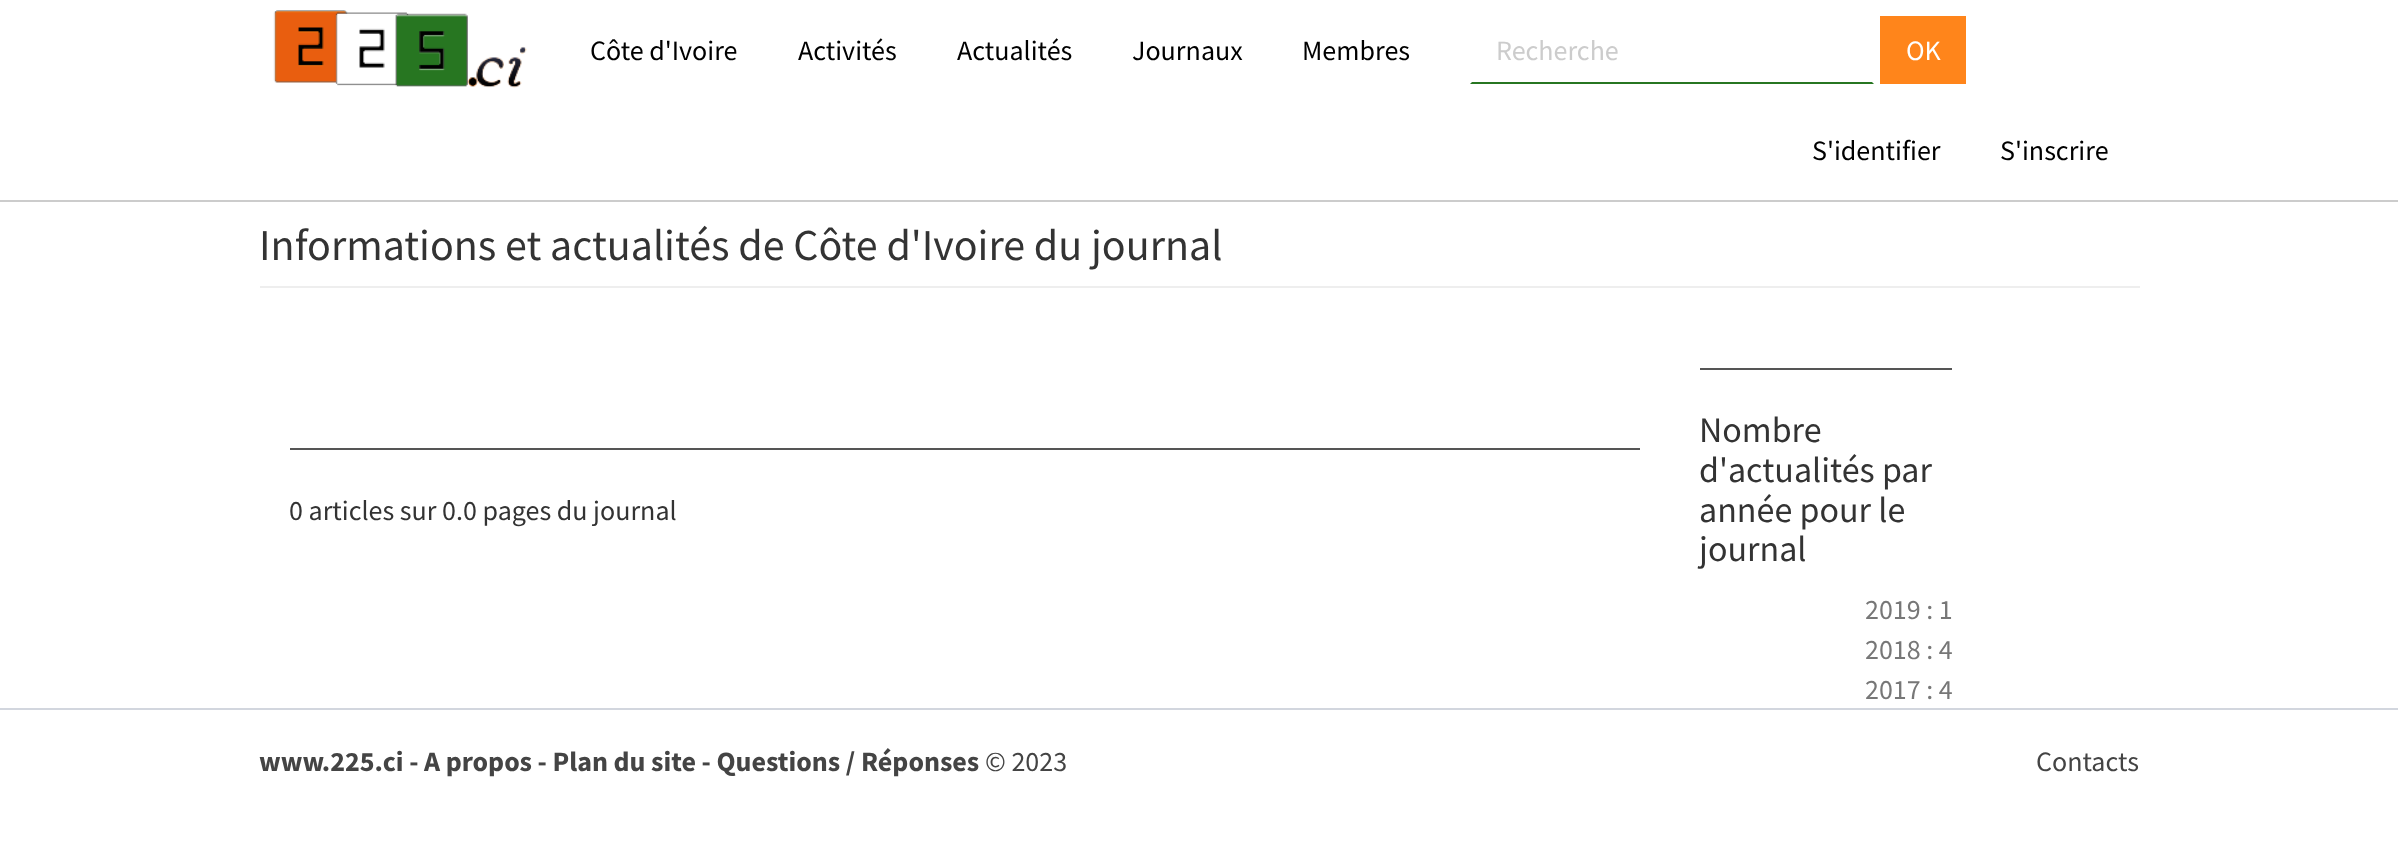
(async () => {
    const canvas = document.querySelector("canvas");
    canvas.width = 2398;
    canvas.height = 860;
    const context = canvas.getContext("2d");
    context.miterLimit = 4;
    context.fontKerning = "normal";
    function write(s, x, y, font, color) {
        context.font = font;
        context.fillStyle = color;
        context.fillText(s, x, y);
    }
    function block(x, y, w, h, color) {
        context.fillStyle = color;
        context.fillRect(x, y, w, h);
    }
    async function photo(src, x, y, w, h) {
        const img = new Image();
        img.src = src;
        await img.decode();
        context.drawImage(img, x, y, w, h);
    }

    block(0, 0, 2398, 860, "rgb(255, 255, 255)");
    block(0, 200, 2398, 2, "rgb(204, 204, 204)");
    await photo("media/1.png", 273, 10, 254, 78);
    write("Côte d'Ivoire", 590, 60, "28px Source Sans Pro", "rgb(0, 0, 0)");
    write("Activités", 798, 60, "28px Source Sans Pro", "rgb(0, 0, 0)");
    write("Actualités", 957, 60, "28px Source Sans Pro", "rgb(0, 0, 0)");
    write("Journaux", 1132, 60, "28px Source Sans Pro", "rgb(0, 0, 0)");
    write("Membres", 1302, 60, "28px Source Sans Pro", "rgb(0, 0, 0)");
    context.fillStyle = "rgb(39, 118, 33)";
    context.beginPath();
    context.moveTo(1874, 84);
    context.lineTo(1470, 84);
    context.lineTo(1472, 82);
    context.lineTo(1872, 82);
    context.closePath();
    context.fill();
    write("Recherche", 1496, 60, "28px Source Sans Pro", "rgb(204, 204, 204)");
    block(1880, 16, 86, 68, "rgb(255, 133, 27)");
    write("OK", 1906, 60, "28px Source Sans Pro", "rgb(255, 255, 255)");
    write("S'identifier", 1812, 160, "28px Source Sans Pro", "rgb(0, 0, 0)");
    write("S'inscrire", 2000, 160, "28px Source Sans Pro", "rgb(0, 0, 0)");
    block(260, 286, 1880, 2, "rgb(238, 238, 238)");
    write("Informations et actualités de Côte d'Ivoire du journal", 259, 260, "44px Source Sans Pro", "rgb(51, 51, 51)");
    block(290, 448, 1350, 2, "rgb(85, 85, 85)");
    write("0 articles sur 0.0 pages du journal", 289, 520, "28px Source Sans Pro", "rgb(51, 51, 51)");
    block(1700, 368, 252, 2, "rgb(85, 85, 85)");
    write("Nombre", 1699, 442, "36px Source Sans Pro", "rgb(51, 51, 51)");
    write("d'actualités par", 1699, 482, "36px Source Sans Pro", "rgb(51, 51, 51)");
    write("année pour le", 1699, 522, "36px Source Sans Pro", "rgb(51, 51, 51)");
    write("journal", 1699, 561, "36px Source Sans Pro", "rgb(51, 51, 51)");
    write("2019 : 1", 1865, 619, "28px Source Sans Pro", "rgb(119, 119, 119)");
    write("2018 : 4", 1865, 659, "28px Source Sans Pro", "rgb(119, 119, 119)");
    write("2017 : 4", 1865, 699, "28px Source Sans Pro", "rgb(119, 119, 119)");
    block(0, 708, 2398, 2, "rgb(210, 214, 222)");
    write("www.225.ci - A propos - Plan du site - Questions / Réponses", 259, 771, "bold 28px Source Sans Pro", "rgb(68, 68, 68)");
    write("© 2023", 985, 771, "28px Source Sans Pro", "rgb(68, 68, 68)");
    write("Contacts", 2036, 771, "28px Source Sans Pro", "rgb(68, 68, 68)");
})();
